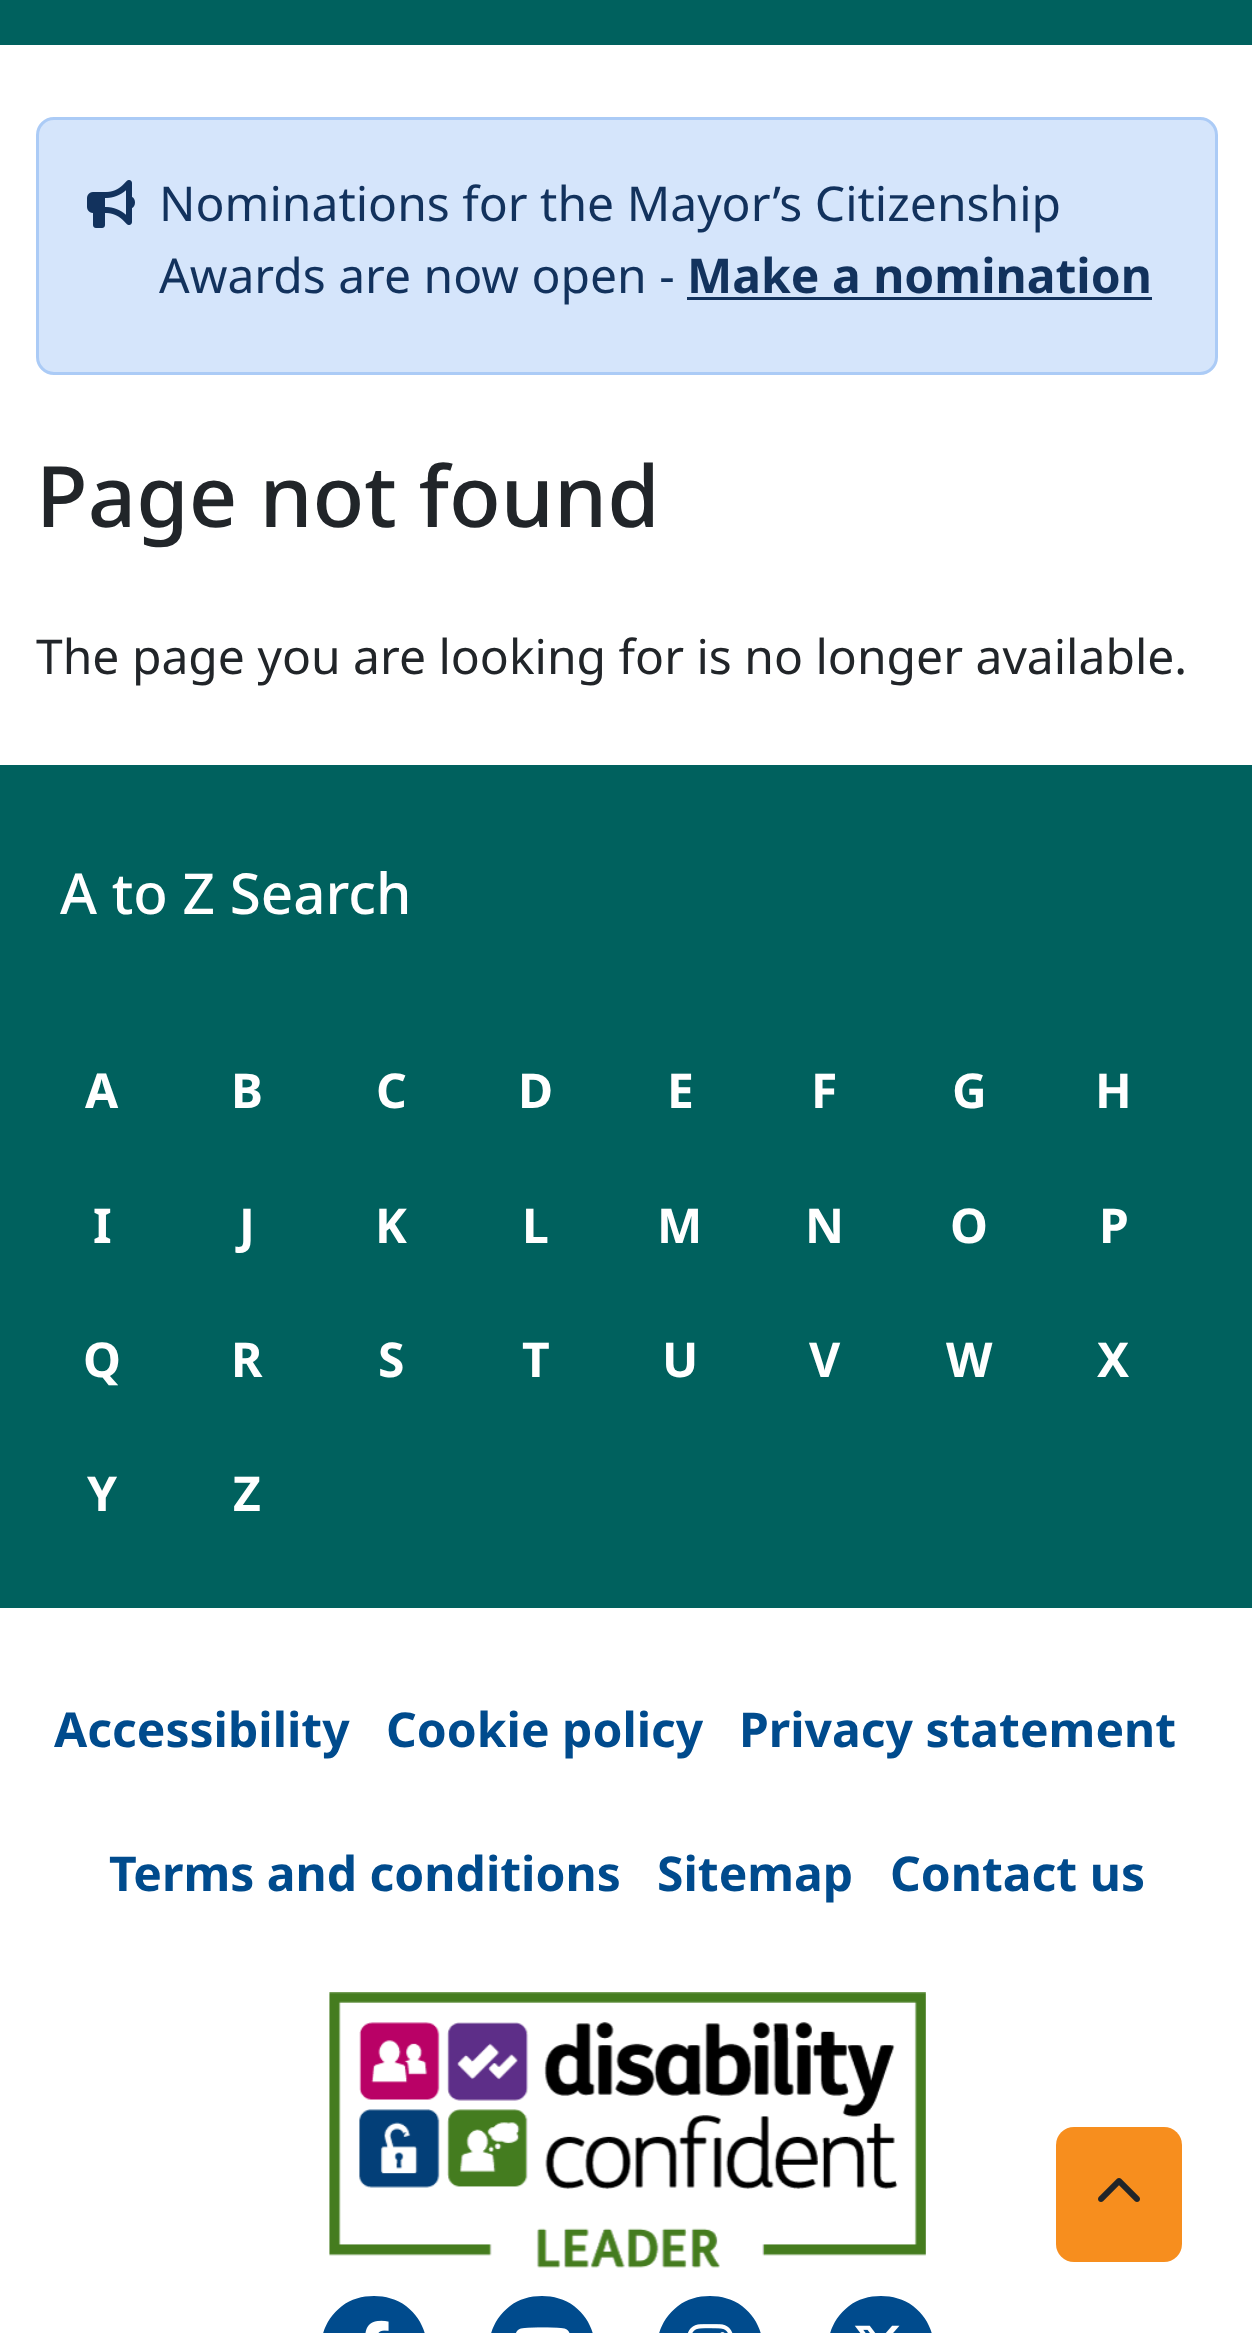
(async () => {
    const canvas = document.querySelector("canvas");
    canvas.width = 1252;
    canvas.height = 2333;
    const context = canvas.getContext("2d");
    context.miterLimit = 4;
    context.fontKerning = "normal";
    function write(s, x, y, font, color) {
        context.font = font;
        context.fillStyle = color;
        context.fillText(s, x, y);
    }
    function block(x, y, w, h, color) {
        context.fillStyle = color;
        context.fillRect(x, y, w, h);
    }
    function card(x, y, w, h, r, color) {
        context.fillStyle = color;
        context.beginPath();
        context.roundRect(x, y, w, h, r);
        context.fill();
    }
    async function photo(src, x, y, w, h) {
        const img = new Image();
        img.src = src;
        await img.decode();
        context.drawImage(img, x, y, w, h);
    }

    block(0, 0, 1252, 2333, "rgb(255, 255, 255)");
    block(0, 0, 1252, 45, "rgb(0, 97, 94)");
    context.fillStyle = "rgb(213, 229, 251)";
    context.beginPath();
    context.roundRect(37.5, 118.5, 1179, 255, 16.5);
    context.fill();
    context.strokeStyle = "rgb(171, 203, 246)";
    context.lineWidth = 3;
    context.stroke();
    await photo("media/1.png", 87, 180, 48, 48);
    write("Nominations for the Mayor’s Citizenship", 159, 221, "48px Noto Sans", "rgb(18, 50, 93)");
    write("Awards are now open -", 159, 293, "48px Noto Sans", "rgb(18, 50, 93)");
    write("Make a nomination", 687, 293, "bold 48px Noto Sans", "rgb(18, 50, 93)");
    block(687, 297, 465, 3, "rgb(18, 50, 93)");
    write("Page not found", 36, 527, "500 84.75px Noto Sans", "rgb(33, 37, 41)");
    write("The page you are looking for is no longer available.", 36, 674, "48px Noto Sans", "rgb(33, 37, 41)");
    block(0, 765, 1252, 843, "rgb(0, 97, 94)");
    write("A to Z Search", 60, 914, "500 56.5px Noto Sans", "rgb(255, 255, 255)");
    write("A", 85, 1108, "bold 48px Noto Sans", "rgb(255, 255, 255)");
    write("B", 231, 1108, "bold 48px Noto Sans", "rgb(255, 255, 255)");
    write("C", 376, 1108, "bold 48px Noto Sans", "rgb(255, 255, 255)");
    write("D", 518, 1108, "bold 48px Noto Sans", "rgb(255, 255, 255)");
    write("E", 667, 1108, "bold 48px Noto Sans", "rgb(255, 255, 255)");
    write("F", 811, 1108, "bold 48px Noto Sans", "rgb(255, 255, 255)");
    write("G", 952, 1108, "bold 48px Noto Sans", "rgb(255, 255, 255)");
    write("H", 1095, 1108, "bold 48px Noto Sans", "rgb(255, 255, 255)");
    write("I", 93, 1243, "bold 48px Noto Sans", "rgb(255, 255, 255)");
    write("J", 239, 1243, "bold 48px Noto Sans", "rgb(255, 255, 255)");
    write("K", 375, 1243, "bold 48px Noto Sans", "rgb(255, 255, 255)");
    write("L", 522, 1243, "bold 48px Noto Sans", "rgb(255, 255, 255)");
    write("M", 657, 1243, "bold 48px Noto Sans", "rgb(255, 255, 255)");
    write("N", 805, 1243, "bold 48px Noto Sans", "rgb(255, 255, 255)");
    write("O", 950, 1243, "bold 48px Noto Sans", "rgb(255, 255, 255)");
    write("P", 1099, 1243, "bold 48px Noto Sans", "rgb(255, 255, 255)");
    write("Q", 83, 1377, "bold 48px Noto Sans", "rgb(255, 255, 255)");
    write("R", 231, 1377, "bold 48px Noto Sans", "rgb(255, 255, 255)");
    write("S", 378, 1377, "bold 48px Noto Sans", "rgb(255, 255, 255)");
    write("T", 522, 1377, "bold 48px Noto Sans", "rgb(255, 255, 255)");
    write("U", 662, 1377, "bold 48px Noto Sans", "rgb(255, 255, 255)");
    write("V", 809, 1377, "bold 48px Noto Sans", "rgb(255, 255, 255)");
    write("W", 946, 1377, "bold 48px Noto Sans", "rgb(255, 255, 255)");
    write("X", 1097, 1377, "bold 48px Noto Sans", "rgb(255, 255, 255)");
    write("Y", 87, 1511, "bold 48px Noto Sans", "rgb(255, 255, 255)");
    write("Z", 233, 1511, "bold 48px Noto Sans", "rgb(255, 255, 255)");
    write("Accessibility", 54, 1747, "bold 48px Noto Sans", "rgb(0, 75, 141)");
    write("Cookie policy", 386, 1747, "bold 48px Noto Sans", "rgb(0, 75, 141)");
    write("Privacy statement", 739, 1747, "bold 48px Noto Sans", "rgb(0, 75, 141)");
    write("Terms and conditions", 109, 1891, "bold 48px Noto Sans", "rgb(0, 75, 141)");
    write("Sitemap", 657, 1891, "bold 48px Noto Sans", "rgb(0, 75, 141)");
    write("Contact us", 890, 1891, "bold 48px Noto Sans", "rgb(0, 75, 141)");
    await photo("media/2.png", 329, 1992, 597, 276);
    context.beginPath();
    context.moveTo(374, 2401);
    context.bezierCurveTo(424, 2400, 446, 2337, 406, 2306);
    context.bezierCurveTo(397, 2299, 385, 2296, 374, 2296);
    context.bezierCurveTo(362, 2296, 351, 2299, 342, 2306);
    context.bezierCurveTo(302, 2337, 323, 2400, 374, 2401);
    context.closePath();
    context.fill();
    await photo("media/3.png", 365, 2320, 24, 13);
    context.beginPath();
    context.moveTo(542, 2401);
    context.bezierCurveTo(592, 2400, 614, 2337, 574, 2306);
    context.bezierCurveTo(565, 2299, 553, 2296, 542, 2296);
    context.bezierCurveTo(530, 2296, 519, 2299, 510, 2306);
    context.bezierCurveTo(470, 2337, 491, 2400, 542, 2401);
    context.closePath();
    context.fill();
    await photo("media/4.png", 516, 2327, 54, 6);
    context.beginPath();
    context.moveTo(710, 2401);
    context.bezierCurveTo(760, 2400, 782, 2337, 742, 2306);
    context.bezierCurveTo(733, 2299, 721, 2296, 710, 2296);
    context.bezierCurveTo(698, 2296, 687, 2299, 678, 2306);
    context.bezierCurveTo(638, 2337, 659, 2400, 710, 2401);
    context.closePath();
    context.fill();
    await photo("media/5.png", 688, 2324, 45, 9);
    context.beginPath();
    context.moveTo(881, 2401);
    context.bezierCurveTo(931, 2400, 953, 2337, 913, 2306);
    context.bezierCurveTo(904, 2299, 892, 2296, 881, 2296);
    context.bezierCurveTo(869, 2296, 858, 2299, 849, 2306);
    context.bezierCurveTo(809, 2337, 830, 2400, 881, 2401);
    context.closePath();
    context.fill();
    await photo("media/6.png", 854, 2325, 46, 8);
    card(1056, 2127, 126, 135, 18, "rgb(247, 142, 30)");
    await photo("media/7.png", 1098, 2178, 42, 24);
})();
